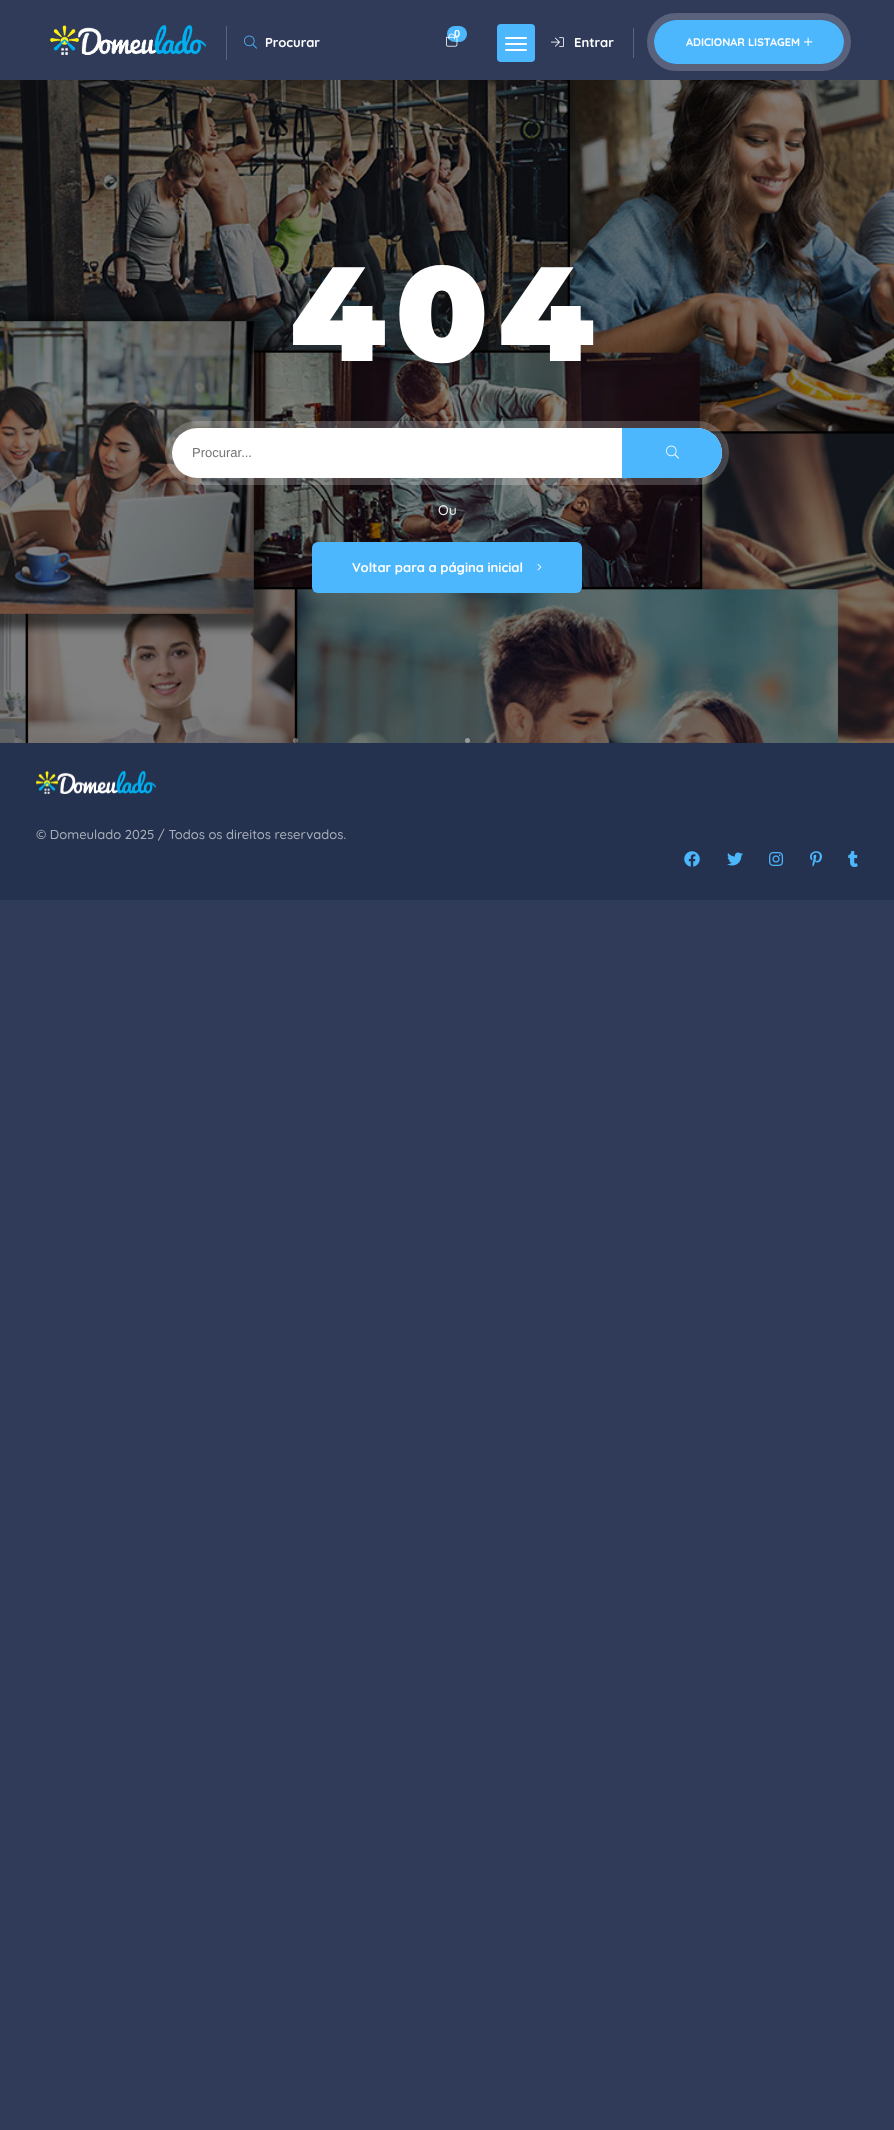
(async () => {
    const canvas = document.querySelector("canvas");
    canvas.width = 894;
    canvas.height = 2130;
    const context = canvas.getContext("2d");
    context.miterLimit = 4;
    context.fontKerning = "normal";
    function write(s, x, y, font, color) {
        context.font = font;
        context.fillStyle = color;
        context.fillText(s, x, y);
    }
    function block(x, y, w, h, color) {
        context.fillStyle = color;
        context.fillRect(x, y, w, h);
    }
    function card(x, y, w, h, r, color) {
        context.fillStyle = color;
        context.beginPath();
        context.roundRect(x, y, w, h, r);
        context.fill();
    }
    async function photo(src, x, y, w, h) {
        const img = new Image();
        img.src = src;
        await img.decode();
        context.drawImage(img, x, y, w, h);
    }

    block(0, 0, 894, 2130, "rgb(47, 59, 89)");
    await photo("media/1.png", 50, 25, 156, 30);
    card(447, 26, 20, 16, 8, "rgb(77, 183, 254)");
    write("0", 454, 37, "bold 10px Quicksand", "rgb(255, 255, 255)");
    await photo("media/2.png", 446, 33, 12, 14);
    card(497, 24, 38, 38, 4, "rgb(77, 183, 254)");
    card(505, 37, 22, 2, 1, "rgb(255, 255, 255)");
    card(505, 43, 22, 2, 1, "rgb(255, 255, 255)");
    card(505, 49, 22, 2, 1, "rgb(255, 255, 255)");
    block(226, 26, 1, 34, "rgb(91, 100, 124)");
    await photo("media/3.png", 244, 35, 13, 14);
    write("Procurar", 265, 47, "bold 13px Quicksand", "rgb(255, 255, 255)");
    await photo("media/4.png", 551, 37, 13, 10);
    write("Entrar", 574, 47, "bold 13px Quicksand", "rgb(255, 255, 255)");
    block(633, 28, 1, 30, "rgb(91, 100, 124)");
    context.beginPath();
    context.roundRect(650.5, 16.5, 197, 51, 25.5);
    context.strokeStyle = "rgb(89, 98, 122)";
    context.lineWidth = 7;
    context.stroke();
    card(654, 20, 190, 44, 22, "rgb(77, 183, 254)");
    write("ADICIONAR LISTAGEM", 686, 46, "bold 11px Quicksand", "rgb(255, 255, 255)");
    await photo("media/5.png", 804, 37, 9, 9);
    await photo("media/6.png", 0, 80, 894, 663);
    context.letterSpacing = "10px";
    write("404", 290, 361, "900 134px Montserrat", "rgb(255, 255, 255)");
    context.beginPath();
    context.roundRect(168.5, 424.5, 557, 57, 28.5);
    context.strokeStyle = "rgba(255, 255, 255, 0.2)";
    context.stroke();
    card(172, 428, 550, 50, 25, "rgb(255, 255, 255)");
    context.letterSpacing = "0px";
    write("Procurar...", 192, 457, "13px Liberation Sans", "rgb(117, 117, 117)");
    context.fillStyle = "rgb(77, 183, 254)";
    context.beginPath();
    context.roundRect(622, 428, 100, 50, [0, 25, 25, 0]);
    context.fill();
    await photo("media/7.png", 666, 445, 13, 14);
    write("Ou", 438, 515, "500 14px Quicksand", "rgb(237, 237, 238)");
    card(312, 542, 270, 51, 6, "rgb(77, 183, 254)");
    write("Voltar para a página inicial", 352, 572, "bold 13px Quicksand", "rgb(255, 255, 255)");
    await photo("media/8.png", 537, 563, 5, 8);
    context.fillStyle = "rgba(255, 255, 255, 0.37)";
    context.beginPath();
    context.arc(295.5, 740.5, 2.5, 0, Math.PI * 2);
    context.fill();
    context.fillStyle = "rgb(151, 157, 157)";
    context.beginPath();
    context.arc(467.5, 740.5, 2.5, 0, Math.PI * 2);
    context.fill();
    block(0, 743, 894, 157, "rgb(36, 50, 79)");
    await photo("media/9.png", 36, 771, 120, 23);
    write("© Domeulado 2025 / Todos os direitos reservados.", 36, 839, "500 13px Quicksand", "rgb(170, 175, 186)");
    await photo("media/10.png", 684, 851, 16, 16);
    await photo("media/11.png", 727, 852, 16, 14);
    await photo("media/12.png", 769, 852, 15, 14);
    await photo("media/13.png", 810, 851, 12, 16);
    await photo("media/14.png", 848, 851, 10, 16);
})();
